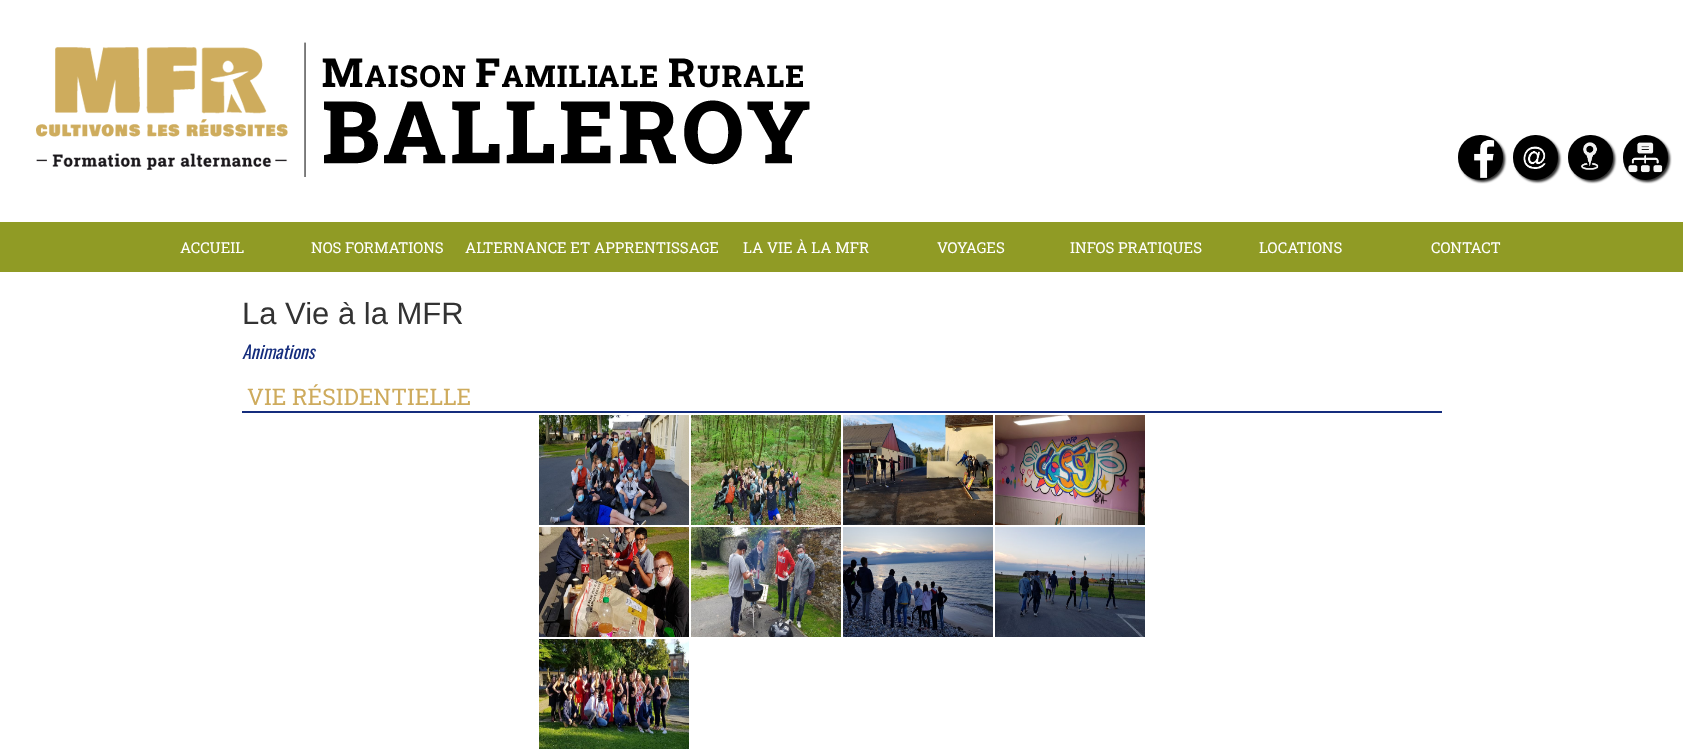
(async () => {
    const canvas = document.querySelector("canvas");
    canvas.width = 1683;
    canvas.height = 755;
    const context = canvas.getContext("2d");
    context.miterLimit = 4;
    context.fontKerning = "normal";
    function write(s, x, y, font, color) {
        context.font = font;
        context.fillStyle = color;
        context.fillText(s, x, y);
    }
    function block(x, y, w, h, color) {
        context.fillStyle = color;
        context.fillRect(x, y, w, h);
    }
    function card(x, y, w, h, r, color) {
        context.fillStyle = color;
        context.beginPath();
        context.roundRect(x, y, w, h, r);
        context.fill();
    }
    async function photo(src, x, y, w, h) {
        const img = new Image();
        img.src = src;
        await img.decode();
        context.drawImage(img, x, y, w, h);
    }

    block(0, 0, 1683, 755, "rgb(255, 255, 255)");
    await photo("media/1.png", 36, 42, 774, 135);
    context.fillStyle = "rgb(51, 51, 51)";
    context.filter = "blur(1px)";
    context.beginPath();
    context.roundRect(1460, 137, 45, 45, 22);
    context.fill();
    context.filter = "none";
    card(1458, 135, 45, 45, 22, "rgb(0, 0, 0)");
    await photo("media/2.png", 1474, 140, 21, 38);
    context.fillStyle = "rgb(51, 51, 51)";
    context.filter = "blur(1px)";
    context.beginPath();
    context.roundRect(1515, 137, 45, 45, 22);
    context.fill();
    context.filter = "none";
    card(1513, 135, 45, 45, 22, "rgb(0, 0, 0)");
    await photo("media/3.png", 1523, 146, 23, 23);
    context.fillStyle = "rgb(51, 51, 51)";
    context.filter = "blur(1px)";
    context.beginPath();
    context.roundRect(1570, 137, 45, 45, 22);
    context.fill();
    context.filter = "none";
    card(1568, 135, 45, 45, 22, "rgb(0, 0, 0)");
    await photo("media/4.png", 1581, 142, 18, 28);
    context.fillStyle = "rgb(51, 51, 51)";
    context.filter = "blur(1px)";
    context.beginPath();
    context.roundRect(1625, 137, 45, 45, 22);
    context.fill();
    context.filter = "none";
    card(1623, 135, 45, 45, 22, "rgb(0, 0, 0)");
    await photo("media/5.png", 1628, 142, 35, 31);
    block(0, 222, 1683, 50, "rgb(144, 155, 37)");
    write("ACCUEIL", 180, 253, "15px Roboto Slab", "rgb(255, 255, 255)");
    write("NOS FORMATIONS", 311, 253, "15px Roboto Slab", "rgb(255, 255, 255)");
    write("ALTERNANCE ET APPRENTISSAGE", 465, 253, "15px Roboto Slab", "rgb(255, 255, 255)");
    write("LA VIE À LA MFR", 743, 253, "15px Roboto Slab", "rgb(255, 255, 255)");
    write("VOYAGES", 937, 253, "15px Roboto Slab", "rgb(255, 255, 255)");
    write("INFOS PRATIQUES", 1070, 253, "15px Roboto Slab", "rgb(255, 255, 255)");
    write("LOCATIONS", 1259, 253, "15px Roboto Slab", "rgb(255, 255, 255)");
    write("CONTACT", 1431, 253, "15px Roboto Slab", "rgb(255, 255, 255)");
    context.save();
    context.beginPath();
    context.rect(242, 302, 1200, 453);
    context.clip();
    write("La Vie à la MFR", 242, 324, "31px Liberation Sans", "rgb(51, 51, 51)");
    context.restore();
    write("Animations", 242, 359, "italic 18px Oswald", "rgb(21, 45, 125)");
    block(242, 411, 1200, 2, "rgb(21, 45, 125)");
    write("VIE RÉSIDENTIELLE", 247, 405, "23px Roboto Slab", "rgb(206, 171, 93)");
    await photo("media/6.png", 539, 415, 150, 110);
    await photo("media/7.png", 691, 415, 150, 110);
    await photo("media/8.png", 843, 415, 150, 110);
    await photo("media/9.png", 995, 415, 150, 110);
    await photo("media/10.png", 539, 527, 150, 110);
    await photo("media/11.png", 691, 527, 150, 110);
    await photo("media/12.png", 843, 527, 150, 110);
    await photo("media/13.png", 995, 527, 150, 110);
    await photo("media/14.png", 539, 639, 150, 110);
})();
